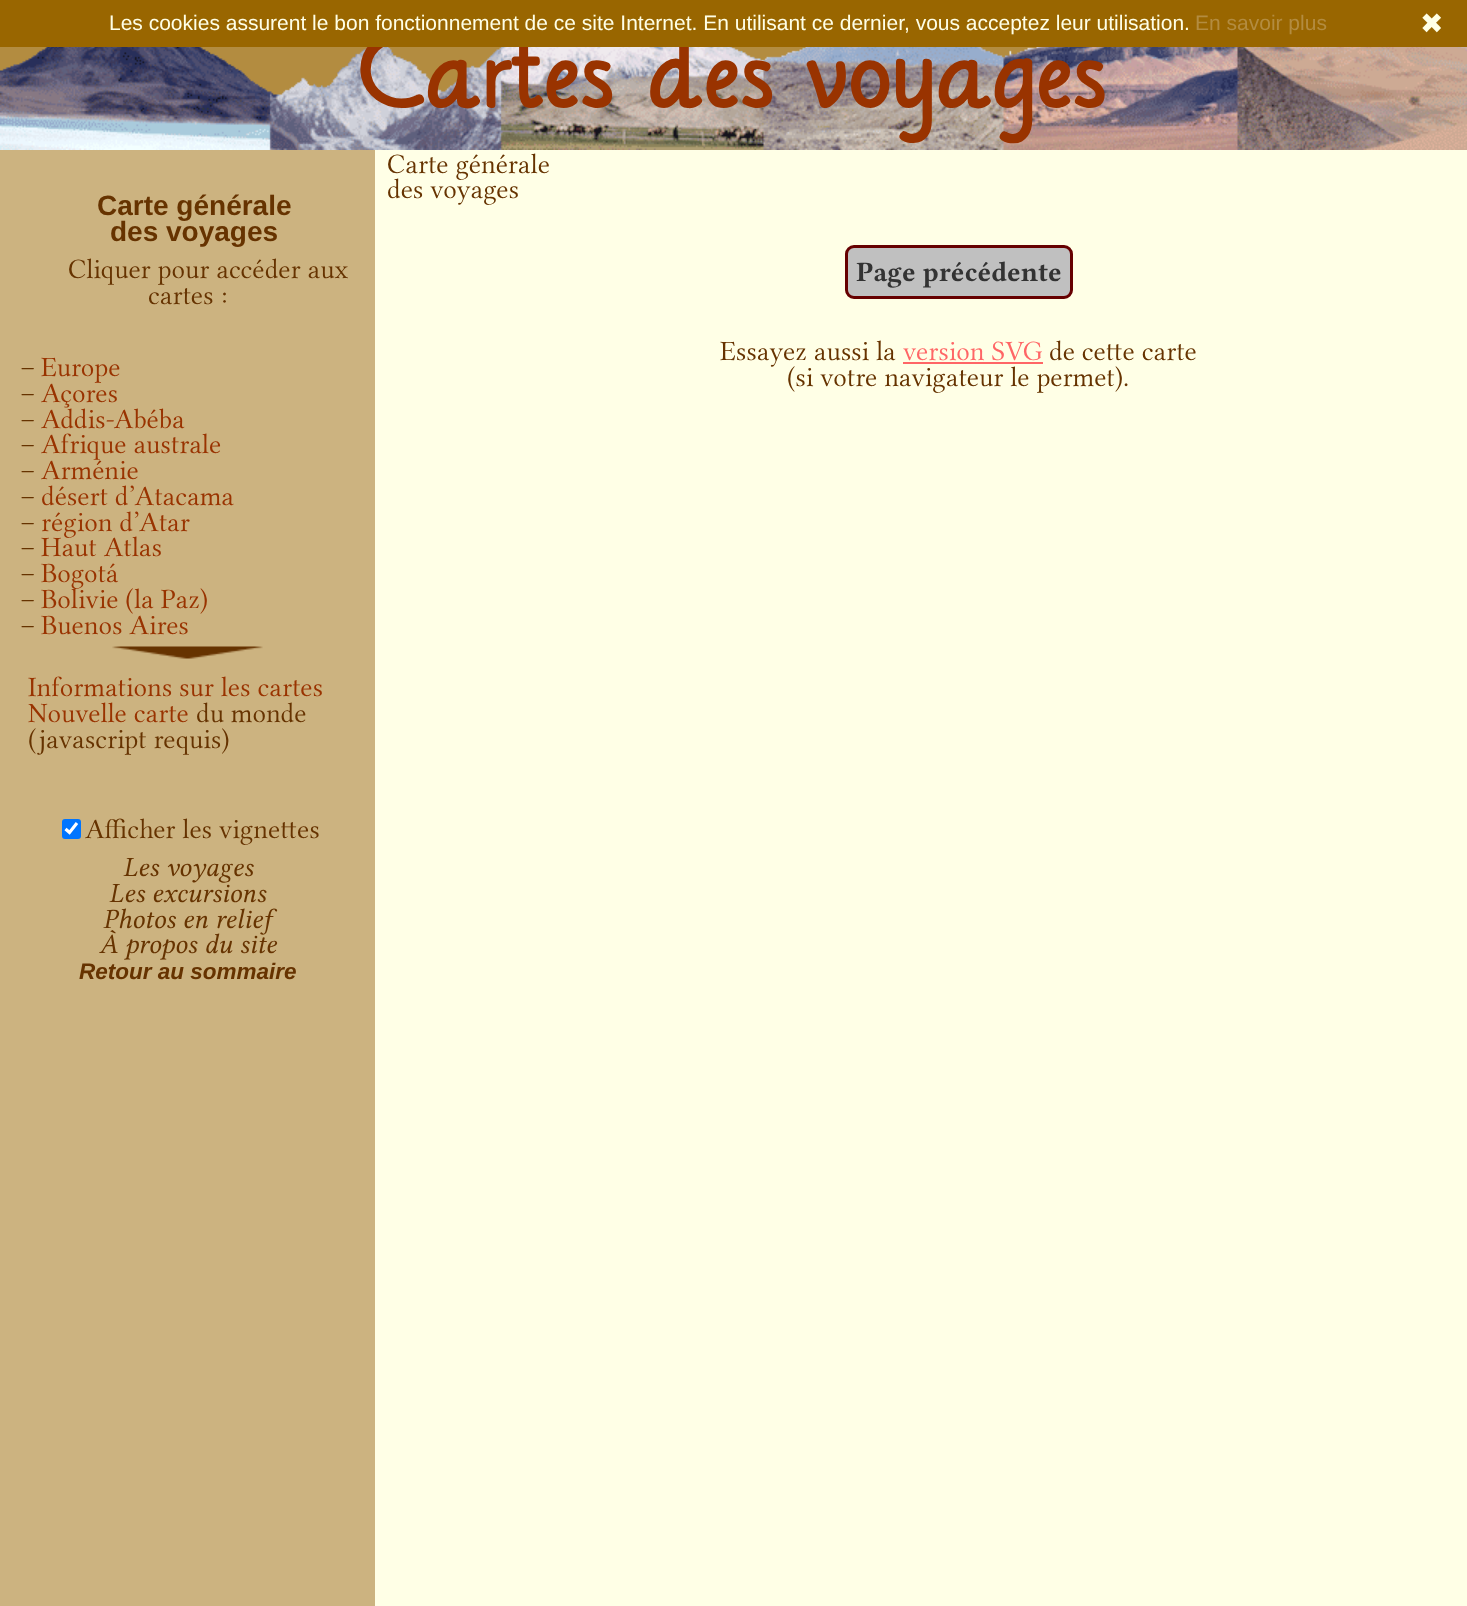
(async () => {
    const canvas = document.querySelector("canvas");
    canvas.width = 1467;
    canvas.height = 1606;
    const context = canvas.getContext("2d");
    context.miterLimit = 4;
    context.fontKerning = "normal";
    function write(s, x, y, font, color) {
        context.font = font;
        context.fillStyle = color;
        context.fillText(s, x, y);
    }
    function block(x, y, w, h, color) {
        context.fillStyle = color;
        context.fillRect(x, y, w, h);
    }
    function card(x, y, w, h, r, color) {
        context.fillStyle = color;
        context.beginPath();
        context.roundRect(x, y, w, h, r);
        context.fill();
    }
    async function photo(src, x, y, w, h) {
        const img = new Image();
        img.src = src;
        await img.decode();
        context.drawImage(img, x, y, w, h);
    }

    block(0, 0, 1467, 1606, "rgb(255, 255, 230)");
    block(0, 47, 1037, 48, "rgb(179, 140, 64)");
    await photo("media/1.png", 0, 47, 1467, 103);
    write("Cartes des voyages", 358, 107, "81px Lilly", "rgb(153, 51, 0)");
    block(0, 0, 1467, 47, "rgb(153, 102, 0)");
    write("Les cookies assurent le bon fonctionnement de ce site Internet. En utilisant ce dernier, vous acceptez leur utilisation.", 109, 30, "21px Liberation Sans", "rgb(255, 255, 230)");
    write("En savoir plus", 1195, 30, "21px Liberation Sans", "rgb(179, 140, 64)");
    write("✖", 1420, 33, "28px DejaVu Sans", "rgb(255, 255, 230)");
    block(0, 150, 375, 1456, "rgb(204, 179, 128)");
    write("Carte générale", 97, 215, "bold 28px Liberation Sans", "rgb(102, 51, 0)");
    write("des voyages", 110, 241, "bold 28px Liberation Sans", "rgb(102, 51, 0)");
    write("Cliquer pour accéder aux", 68, 278, "28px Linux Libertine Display", "rgb(102, 51, 0)");
    write("cartes :", 148, 304, "28px Linux Libertine Display", "rgb(102, 51, 0)");
    write("–", 20, 376, "28px Linux Libertine Display", "rgb(102, 51, 0)");
    write("Europe", 41, 376, "28px Linux Libertine Display", "rgb(153, 51, 0)");
    write("–", 20, 402, "28px Linux Libertine Display", "rgb(102, 51, 0)");
    write("Açores", 41, 402, "28px Linux Libertine Display", "rgb(153, 51, 0)");
    write("–", 20, 428, "28px Linux Libertine Display", "rgb(102, 51, 0)");
    write("Addis-Abéba", 41, 428, "28px Linux Libertine Display", "rgb(153, 51, 0)");
    write("–", 20, 453, "28px Linux Libertine Display", "rgb(102, 51, 0)");
    write("Afrique australe", 41, 453, "28px Linux Libertine Display", "rgb(153, 51, 0)");
    write("–", 20, 479, "28px Linux Libertine Display", "rgb(102, 51, 0)");
    write("Arménie", 41, 479, "28px Linux Libertine Display", "rgb(153, 51, 0)");
    write("–", 20, 505, "28px Linux Libertine Display", "rgb(102, 51, 0)");
    write("désert d’Atacama", 41, 505, "28px Linux Libertine Display", "rgb(153, 51, 0)");
    write("–", 20, 531, "28px Linux Libertine Display", "rgb(102, 51, 0)");
    write("région d’Atar", 41, 531, "28px Linux Libertine Display", "rgb(153, 51, 0)");
    write("–", 20, 556, "28px Linux Libertine Display", "rgb(102, 51, 0)");
    write("Haut Atlas", 41, 556, "28px Linux Libertine Display", "rgb(153, 51, 0)");
    write("–", 20, 582, "28px Linux Libertine Display", "rgb(102, 51, 0)");
    write("Bogotá", 41, 582, "28px Linux Libertine Display", "rgb(153, 51, 0)");
    write("–", 20, 608, "28px Linux Libertine Display", "rgb(102, 51, 0)");
    write("Bolivie (la Paz)", 41, 608, "28px Linux Libertine Display", "rgb(153, 51, 0)");
    write("–", 20, 634, "28px Linux Libertine Display", "rgb(102, 51, 0)");
    write("Buenos Aires", 41, 634, "28px Linux Libertine Display", "rgb(153, 51, 0)");
    await photo("media/2.png", 112, 646, 151, 13);
    write("Informations sur les cartes", 28, 696, "28px Linux Libertine Display", "rgb(153, 51, 0)");
    write("Nouvelle carte", 28, 722, "28px Linux Libertine Display", "rgb(153, 51, 0)");
    write("du monde", 196, 722, "28px Linux Libertine Display", "rgb(102, 51, 0)");
    write("(javascript requis)", 28, 748, "28px Linux Libertine Display", "rgb(102, 51, 0)");
    card(62, 819, 19, 20, 3, "rgb(0, 117, 255)");
    context.beginPath();
    context.moveTo(65.5, 829);
    context.lineTo(69.5, 832.5);
    context.lineTo(77, 823);
    context.strokeStyle = "rgb(255, 255, 255)";
    context.lineWidth = 3.1;
    context.stroke();
    write("Afficher les vignettes", 85, 838, "28px Linux Libertine Display", "rgb(102, 51, 0)");
    write("Carte générale", 387, 173, "28px Linux Libertine Display", "rgb(102, 51, 0)");
    write("des voyages", 387, 198, "28px Linux Libertine Display", "rgb(102, 51, 0)");
    context.fillStyle = "rgb(192, 192, 192)";
    context.beginPath();
    context.roundRect(846.5, 246.5, 225, 51, 7.5);
    context.fill();
    context.strokeStyle = "rgb(102, 0, 0)";
    context.lineWidth = 3;
    context.stroke();
    write("Page précédente", 856, 281, "bold 28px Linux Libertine", "rgb(51, 51, 51)");
    write("Essayez aussi la", 720, 360, "28px Linux Libertine Display", "rgb(102, 51, 0)");
    write("version SVG", 903, 360, "28px Linux Libertine Display", "rgb(255, 102, 102)");
    block(903, 362, 140, 2, "rgb(255, 102, 102)");
    write("de cette carte", 1049, 360, "28px Linux Libertine Display", "rgb(102, 51, 0)");
    write("(si votre navigateur le permet).", 787, 386, "28px Linux Libertine Display", "rgb(102, 51, 0)");
    write("Les voyages", 123, 876, "italic 28px Linux Libertine", "rgb(102, 51, 0)");
    write("Les excursions", 109, 902, "italic 28px Linux Libertine", "rgb(102, 51, 0)");
    write("Photos en relief", 103, 928, "italic 28px Linux Libertine", "rgb(102, 51, 0)");
    write("À propos du site", 99, 953, "italic 28px Linux Libertine", "rgb(102, 51, 0)");
    write("Retour au sommaire", 79, 979, "italic bold 22.5px Liberation Sans", "rgb(102, 51, 0)");
})();
